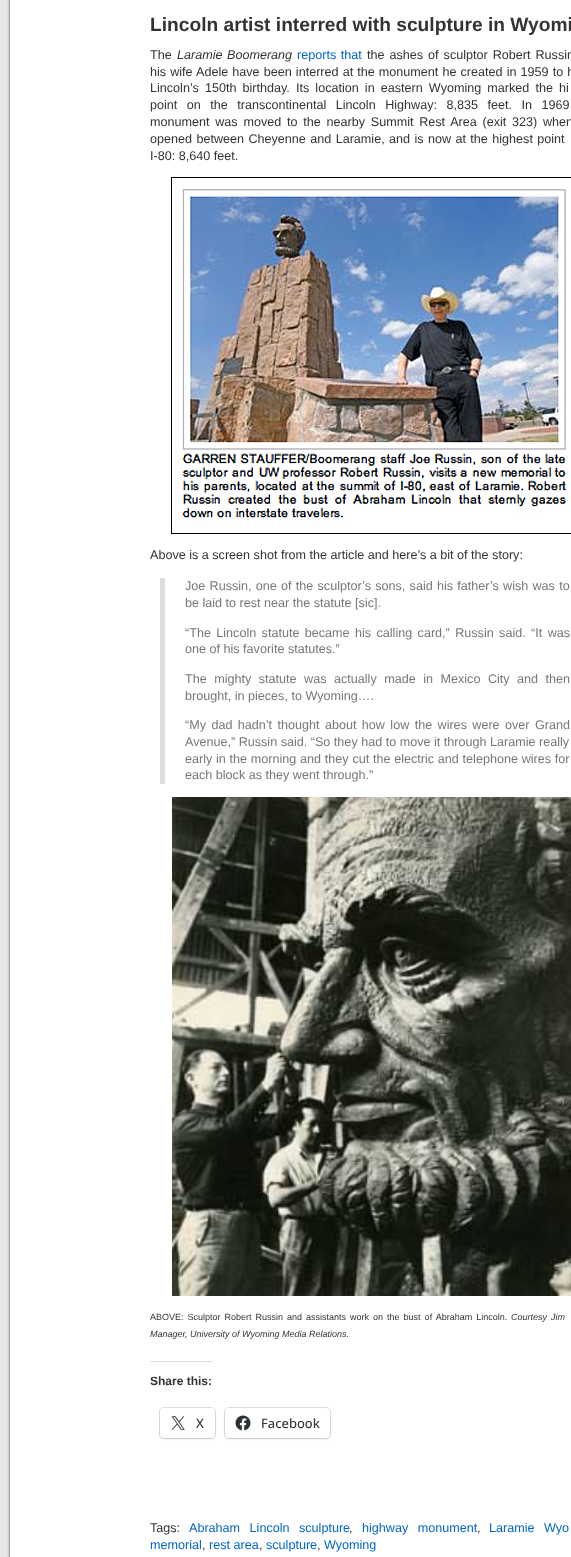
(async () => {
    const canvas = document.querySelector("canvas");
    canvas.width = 571;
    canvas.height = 1557;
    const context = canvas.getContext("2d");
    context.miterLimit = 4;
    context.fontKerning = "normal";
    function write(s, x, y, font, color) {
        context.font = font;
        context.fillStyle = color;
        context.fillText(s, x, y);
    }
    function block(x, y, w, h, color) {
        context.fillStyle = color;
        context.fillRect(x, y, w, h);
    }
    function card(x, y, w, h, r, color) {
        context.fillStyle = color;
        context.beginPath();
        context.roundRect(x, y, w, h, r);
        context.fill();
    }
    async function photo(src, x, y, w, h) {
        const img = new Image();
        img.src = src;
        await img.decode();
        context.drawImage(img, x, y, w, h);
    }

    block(0, 0, 571, 1557, "rgb(231, 231, 231)");
    await photo("media/1.png", 7, 0, 564, 1557);
    write("Lincoln artist interred with sculpture in Wyomi", 150, 31, "bold 19.2px Liberation Sans", "rgb(51, 51, 51)");
    write("The", 150, 59, "12.6px Liberation Sans", "rgb(51, 51, 51)");
    context.wordSpacing = "1px";
    write("Laramie Boomerang", 177, 59, "italic 12.6px Liberation Sans", "rgb(51, 51, 51)");
    write("reports that", 297, 59, "12.6px Liberation Sans", "rgb(0, 102, 204)");
    context.wordSpacing = "1.5px";
    write("the ashes of sculptor Robert Russin", 367, 59, "12.6px Liberation Sans", "rgb(51, 51, 51)");
    context.wordSpacing = "0.6px";
    write("his wife Adele have been interred at the monument he created in 1959 to h", 150, 76, "12.6px Liberation Sans", "rgb(51, 51, 51)");
    context.wordSpacing = "2.6px";
    write("Lincoln’s 150th birthday. Its location in eastern Wyoming marked the hi", 150, 92, "12.6px Liberation Sans", "rgb(51, 51, 51)");
    context.wordSpacing = "6px";
    write("point on the transcontinental Lincoln Highway: 8,835 feet. In 1969", 150, 109, "12.6px Liberation Sans", "rgb(51, 51, 51)");
    context.wordSpacing = "2.25px";
    write("monument was moved", 150, 126, "12.6px Liberation Sans", "rgb(51, 51, 51)");
    write("to the nearby Summit Rest Area (exit 323) when", 287, 126, "12.6px Liberation Sans", "rgb(51, 51, 51)");
    context.wordSpacing = "0.9px";
    write("opened between Cheyenne and Laramie, and is now at the highest point", 150, 143, "12.6px Liberation Sans", "rgb(51, 51, 51)");
    context.wordSpacing = "0px";
    write("I-80: 8,640 feet.", 150, 160, "12.6px Liberation Sans", "rgb(51, 51, 51)");
    await photo("media/2.png", 171, 177, 400, 357);
    write("Above is a screen shot from the article and here’s a bit of the story:", 150, 559, "12.6px Liberation Sans", "rgb(51, 51, 51)");
    block(160, 578, 5, 206, "rgb(221, 221, 221)");
    context.wordSpacing = "0.75px";
    write("Joe Russin, one of the sculptor’s sons, said his father’s wish was to", 185, 590, "12.6px Liberation Sans", "rgb(119, 119, 119)");
    context.wordSpacing = "0px";
    write("be laid to rest near the statute [sic].", 185, 607, "12.6px Liberation Sans", "rgb(119, 119, 119)");
    context.wordSpacing = "1.9px";
    write("“The Lincoln statute became his calling card,” Russin said. “It was", 185, 637, "12.6px Liberation Sans", "rgb(119, 119, 119)");
    context.wordSpacing = "0px";
    write("one of his favorite statutes.”", 185, 653, "12.6px Liberation Sans", "rgb(119, 119, 119)");
    context.wordSpacing = "4px";
    write("The mighty statute was actually made in Mexico City and then", 185, 683, "12.6px Liberation Sans", "rgb(119, 119, 119)");
    context.wordSpacing = "0px";
    write("brought, in pieces, to Wyoming….", 185, 700, "12.6px Liberation Sans", "rgb(119, 119, 119)");
    context.wordSpacing = "1.9px";
    write("“My dad hadn’t thought about how low the wires were over Grand", 185, 729, "12.6px Liberation Sans", "rgb(119, 119, 119)");
    context.wordSpacing = "0px";
    write("Avenue,” Russin said. “So they had to move it through Laramie really", 185, 746, "12.6px Liberation Sans", "rgb(119, 119, 119)");
    context.wordSpacing = "0.25px";
    write("early in the morning and they cut the electric and telephone wires for", 185, 763, "12.6px Liberation Sans", "rgb(119, 119, 119)");
    context.wordSpacing = "0px";
    write("each block as they went through.”", 185, 779, "12.6px Liberation Sans", "rgb(119, 119, 119)");
    await photo("media/3.png", 172, 797, 399, 499);
    context.wordSpacing = "1.5px";
    write("ABOVE: Sculptor Robert Russin and assistants work on the bust of Abraham Lincoln.", 150, 1320, "9px Liberation Sans", "rgb(51, 51, 51)");
    write("Courtesy Jim", 511, 1320, "italic 9px Liberation Sans", "rgb(51, 51, 51)");
    context.wordSpacing = "0px";
    write("Manager, University of Wyoming Media Relations.", 150, 1337, "italic 9px Liberation Sans", "rgb(51, 51, 51)");
    block(150, 1361, 62, 1, "rgb(220, 220, 222)");
    write("Share this:", 150, 1385, "bold 12px Liberation Sans", "rgb(51, 51, 51)");
    context.beginPath();
    context.roundRect(159.5, 1407.5, 56, 31, 4.5);
    context.strokeStyle = "rgb(224, 224, 224)";
    context.stroke();
    context.fillStyle = "rgba(0, 0, 0, 0.12)";
    context.filter = "blur(1px)";
    context.beginPath();
    context.roundRect(160, 1409, 55, 30, 4);
    context.fill();
    context.filter = "none";
    card(160, 1408, 55, 30, 4, "rgb(255, 255, 255)");
    await photo("media/4.png", 171, 1416, 14, 14);
    write("X", 196, 1428, "500 13px Open Sans", "rgb(44, 51, 56)");
    context.beginPath();
    context.roundRect(224.5, 1407.5, 106, 31, 4.5);
    context.stroke();
    context.fillStyle = "rgba(0, 0, 0, 0.12)";
    context.filter = "blur(1px)";
    context.beginPath();
    context.roundRect(225, 1409, 105, 30, 4);
    context.fill();
    context.filter = "none";
    card(225, 1408, 105, 30, 4, "rgb(255, 255, 255)");
    await photo("media/5.png", 235, 1415, 16, 16);
    write("Facebook", 261, 1428, "500 13px Open Sans", "rgb(44, 51, 56)");
    write("Tags:", 150, 1532, "12.6px Liberation Sans", "rgb(51, 51, 51)");
    context.wordSpacing = "6px";
    write("Abraham Lincoln sculpture", 189, 1532, "12.6px Liberation Sans", "rgb(0, 102, 204)");
    context.wordSpacing = "0px";
    write(",", 349, 1532, "12.6px Liberation Sans", "rgb(51, 51, 51)");
    context.wordSpacing = "6px";
    write("highway monument", 362, 1532, "12.6px Liberation Sans", "rgb(0, 102, 204)");
    context.wordSpacing = "0px";
    write(",", 477, 1532, "12.6px Liberation Sans", "rgb(51, 51, 51)");
    context.wordSpacing = "6px";
    write("Laramie Wyo", 489, 1532, "12.6px Liberation Sans", "rgb(0, 102, 204)");
    context.wordSpacing = "0px";
    write("memorial", 150, 1549, "12.6px Liberation Sans", "rgb(0, 102, 204)");
    write(",", 202, 1549, "12.6px Liberation Sans", "rgb(51, 51, 51)");
    write("rest area", 209, 1549, "12.6px Liberation Sans", "rgb(0, 102, 204)");
    write(",", 259, 1549, "12.6px Liberation Sans", "rgb(51, 51, 51)");
    write("sculpture", 266, 1549, "12.6px Liberation Sans", "rgb(0, 102, 204)");
    write(",", 317, 1549, "12.6px Liberation Sans", "rgb(51, 51, 51)");
    write("Wyoming", 324, 1549, "12.6px Liberation Sans", "rgb(0, 102, 204)");
})();
